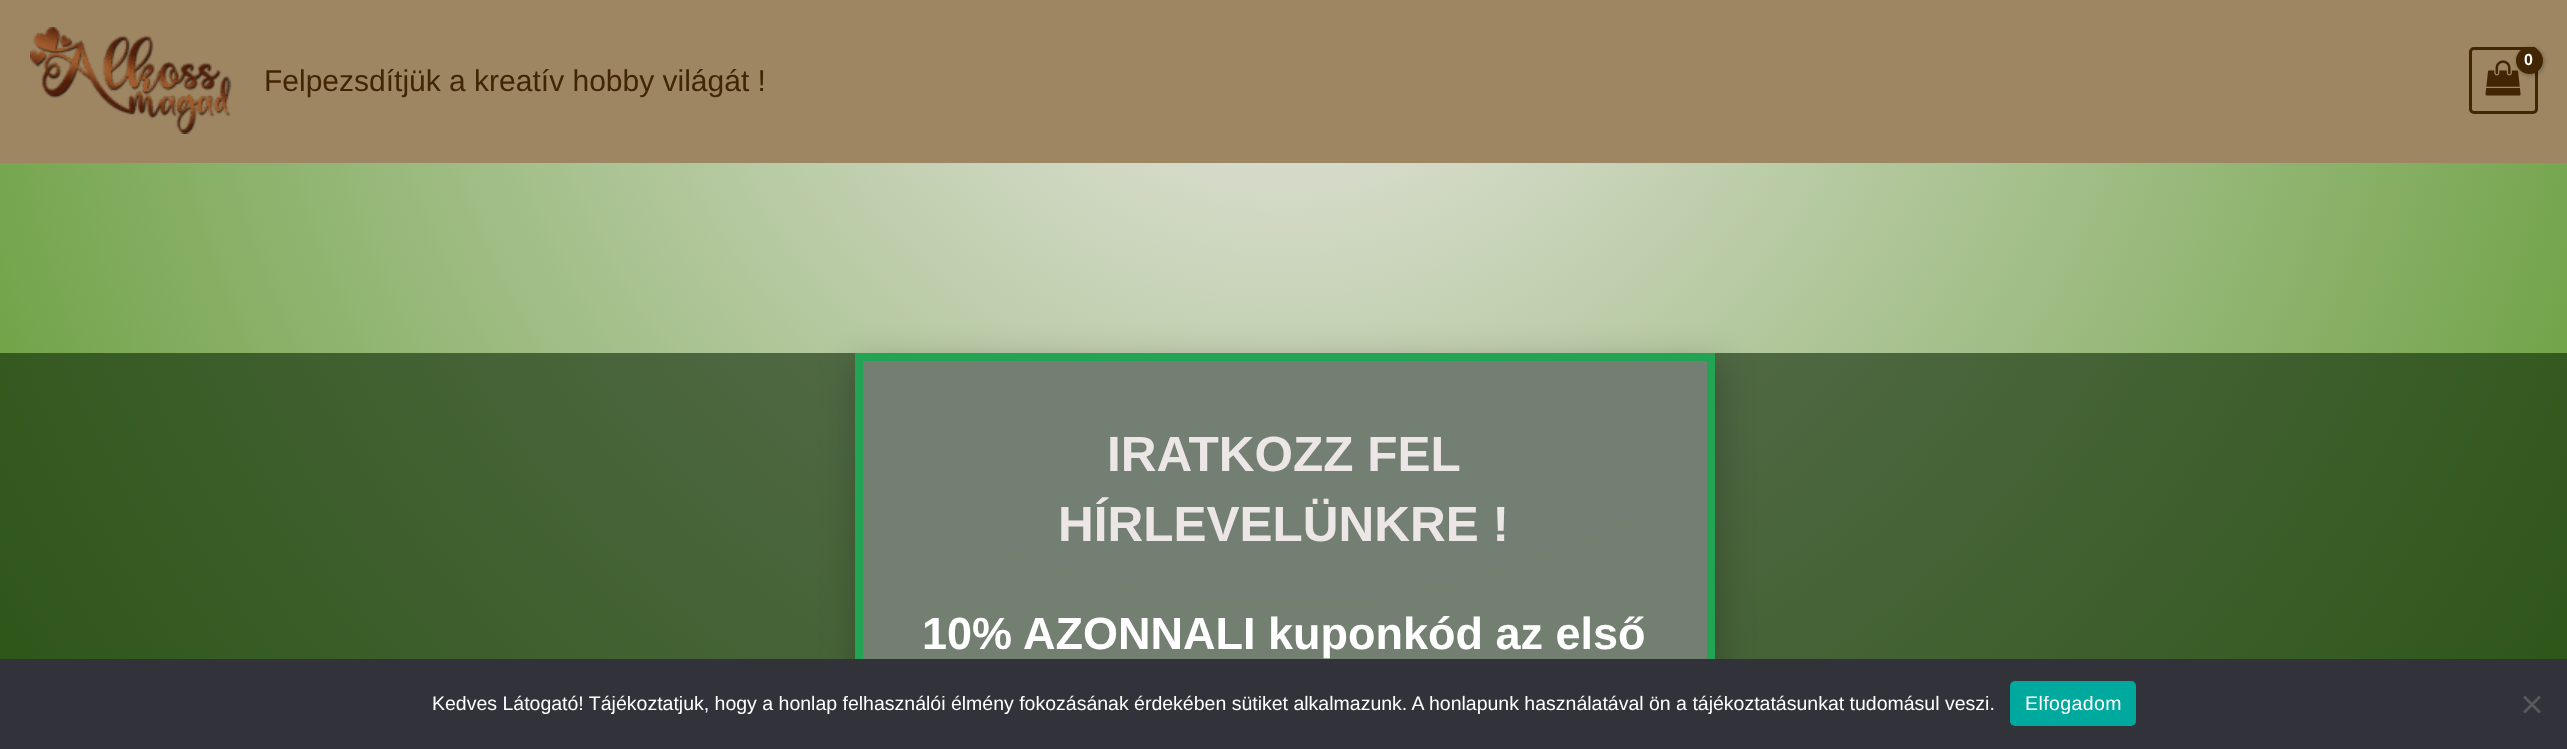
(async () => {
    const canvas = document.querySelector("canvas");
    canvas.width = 2567;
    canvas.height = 749;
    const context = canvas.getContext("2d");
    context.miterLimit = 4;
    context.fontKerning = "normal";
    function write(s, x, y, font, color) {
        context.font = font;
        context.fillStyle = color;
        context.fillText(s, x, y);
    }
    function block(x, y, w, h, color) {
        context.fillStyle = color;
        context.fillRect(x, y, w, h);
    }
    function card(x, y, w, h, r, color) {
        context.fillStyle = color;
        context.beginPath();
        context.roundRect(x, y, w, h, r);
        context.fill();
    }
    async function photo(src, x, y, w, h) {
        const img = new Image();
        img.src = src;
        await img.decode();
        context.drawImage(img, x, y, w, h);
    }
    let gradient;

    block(0, 0, 2567, 749, "rgb(255, 255, 255)");
    gradient = context.createRadialGradient(1284, -93.39, 0, 1284, -93.39, 1816);
    gradient.addColorStop(0, "rgb(237, 232, 232)");
    gradient.addColorStop(1, "rgb(73, 141, 21)");
    context.fillStyle = gradient;
    context.beginPath();
    context.rect(0, 163, 2567, 190);
    context.save();
    context.clip();
    context.scale(1, 1750 / 1816);
    context.fillRect(0, 0, 2567, 778);
    context.restore();
    gradient = context.createRadialGradient(1284, -93.39, 0, 1284, -93.39, 1816);
    gradient.addColorStop(0, "rgb(104, 118, 99)");
    gradient.addColorStop(1, "rgb(35, 80, 10)");
    context.fillStyle = gradient;
    context.beginPath();
    context.rect(0, 353, 2567, 306);
    context.save();
    context.clip();
    context.scale(1, 1750 / 1816);
    context.fillRect(0, 0, 2567, 778);
    context.restore();
    block(0, 0, 2567, 163, "rgb(158, 134, 99)");
    context.beginPath();
    context.roundRect(2470.5, 48.5, 66, 64, 3.5);
    context.strokeStyle = "rgb(65, 38, 1)";
    context.lineWidth = 3;
    context.stroke();
    await photo("media/1.png", 2485, 60, 36, 36);
    context.fillStyle = "rgba(0, 0, 0, 0.3)";
    context.filter = "blur(2px)";
    context.beginPath();
    context.roundRect(2517, 48, 27, 27, 13.5);
    context.fill();
    context.filter = "none";
    context.fillStyle = "rgb(65, 38, 1)";
    context.beginPath();
    context.arc(2529.5, 60.5, 13.5, 0, Math.PI * 2);
    context.fill();
    context.letterSpacing = "-1px";
    write("0", 2524, 65, "bold 16px Liberation Sans", "rgb(255, 255, 255)");
    await photo("media/2.png", 30, 27, 202, 107);
    context.letterSpacing = "0px";
    write("Felpezsdítjük a kreatív hobby világát !", 264, 91, "30px Liberation Sans", "rgb(65, 38, 1)");
    context.save();
    context.beginPath();
    context.moveTo(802, 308);
    context.lineTo(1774, 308);
    context.lineTo(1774, 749);
    context.lineTo(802, 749);
    context.closePath();
    context.moveTo(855, 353);
    context.lineTo(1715, 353);
    context.lineTo(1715, 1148);
    context.lineTo(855, 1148);
    context.closePath();
    context.clip("evenodd");
    context.fillStyle = "rgba(0, 0, 0, 0.2)";
    context.filter = "blur(17px)";
    context.beginPath();
    context.rect(854, 360, 868, 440);
    context.fill();
    context.filter = "none";
    context.restore();
    block(863, 361, 844, 298, "rgba(114, 128, 114, 0.99)");
    context.strokeStyle = "rgb(35, 164, 85)";
    context.lineWidth = 8;
    context.strokeRect(859, 357, 852, 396);
    write("IRATKOZZ FEL", 1107, 471, "bold 49.5px Liberation Sans", "rgb(236, 230, 230)");
    write("HÍRLEVELÜNKRE !", 1058, 541, "bold 49.5px Liberation Sans", "rgb(236, 230, 230)");
    write("10%", 922, 649, "bold 45px Liberation Sans", "rgb(255, 255, 255)");
    write("AZONNALI kuponkód az első", 1023, 649, "bold 45px Liberation Sans", "rgb(255, 255, 255)");
    block(0, 659, 2567, 90, "rgb(50, 50, 58)");
    write("Kedves Látogató! Tájékoztatjuk, hogy a honlap felhasználói élmény fokozásának érdekében sütiket alkalmazunk. A honlapunk használatával ön a tájékoztatásunkat tudomásul veszi.", 432, 710, "19.5px Liberation Sans", "rgb(255, 255, 255)");
    card(2010, 681, 126, 45, 5, "rgb(0, 169, 157)");
    context.letterSpacing = "0.4px";
    write("Elfogadom", 2025, 710, "19.5px Liberation Sans", "rgb(255, 255, 255)");
    context.fillStyle = "rgb(89, 89, 93)";
    context.beginPath();
    context.moveTo(2539, 695.5);
    context.lineTo(2541, 697.5);
    context.lineTo(2525, 713.5);
    context.lineTo(2523, 711.5);
    context.closePath();
    context.fill();
    context.beginPath();
    context.moveTo(2523, 697.5);
    context.lineTo(2525, 695.5);
    context.lineTo(2541, 711.5);
    context.lineTo(2539, 713.5);
    context.closePath();
    context.fill();
})();
